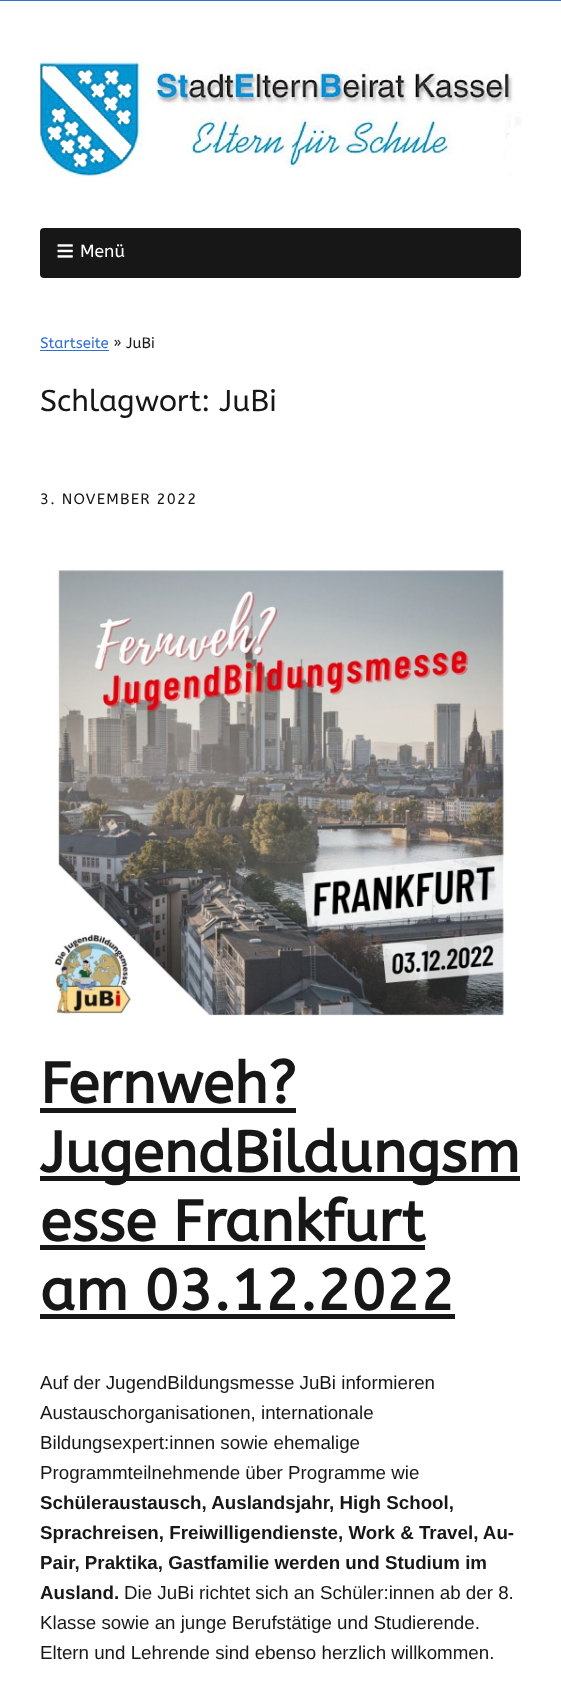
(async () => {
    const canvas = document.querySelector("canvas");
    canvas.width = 561;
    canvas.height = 1708;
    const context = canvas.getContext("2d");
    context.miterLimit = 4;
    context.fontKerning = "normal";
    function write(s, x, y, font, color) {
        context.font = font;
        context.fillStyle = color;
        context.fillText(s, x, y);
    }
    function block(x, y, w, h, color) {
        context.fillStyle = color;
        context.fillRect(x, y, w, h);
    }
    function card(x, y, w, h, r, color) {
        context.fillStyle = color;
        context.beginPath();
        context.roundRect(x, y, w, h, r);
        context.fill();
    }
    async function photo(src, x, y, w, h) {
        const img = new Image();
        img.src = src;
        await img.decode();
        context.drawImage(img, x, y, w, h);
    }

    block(0, 0, 561, 1708, "rgb(48, 112, 209)");
    block(0, 1, 561, 1707, "rgb(255, 255, 255)");
    await photo("media/1.png", 40, 59, 481, 119);
    card(40, 228, 481, 50, 4, "rgb(23, 23, 23)");
    await photo("media/2.png", 57, 244, 16, 14);
    write("Menü", 80, 257, "17.5px ABeeZee", "rgb(255, 255, 255)");
    write("Startseite", 40, 348, "15px ABeeZee", "rgb(48, 112, 209)");
    block(40, 350, 69, 1, "rgb(48, 112, 209)");
    write("» JuBi", 113, 348, "15px ABeeZee", "rgb(23, 23, 23)");
    write("Schlagwort: JuBi", 40, 411, "30px ABeeZee", "rgb(23, 23, 23)");
    context.letterSpacing = "1.25px";
    write("3. NOVEMBER 2022", 40, 504, "15px ABeeZee", "rgb(23, 23, 23)");
    await photo("media/3.png", 54, 569, 452, 449);
    context.letterSpacing = "0px";
    write("Fernweh?", 40, 1103, "bold 57.5px ABeeZee", "rgb(23, 23, 23)");
    block(40, 1108, 256, 5, "rgb(23, 23, 23)");
    block(40, 1176, 480, 5, "rgb(23, 23, 23)");
    write("JugendBildungsm", 40, 1172, "bold 57.5px ABeeZee", "rgb(23, 23, 23)");
    context.wordSpacing = "-1px";
    write("esse Frankfurt", 40, 1241, "bold 57.5px ABeeZee", "rgb(23, 23, 23)");
    block(40, 1245, 385, 5, "rgb(23, 23, 23)");
    write("am 03.12.2022", 40, 1310, "bold 57.5px ABeeZee", "rgb(23, 23, 23)");
    block(40, 1314, 415, 5, "rgb(23, 23, 23)");
    context.wordSpacing = "0px";
    write("Auf der JugendBildungsmesse JuBi informieren", 40, 1389, "18.75px Liberation Sans", "rgb(23, 23, 23)");
    write("Austauschorganisationen, internationale", 40, 1419, "18.75px Liberation Sans", "rgb(23, 23, 23)");
    write("Bildungsexpert:innen sowie ehemalige", 40, 1449, "18.75px Liberation Sans", "rgb(23, 23, 23)");
    write("Programmteilnehmende über Programme wie", 40, 1479, "18.75px Liberation Sans", "rgb(23, 23, 23)");
    write("Schüleraustausch, Auslandsjahr, High School,", 40, 1509, "bold 18.75px Liberation Sans", "rgb(23, 23, 23)");
    write("Sprachreisen, Freiwilligendienste, Work & Travel, Au-", 40, 1539, "bold 18.75px Liberation Sans", "rgb(23, 23, 23)");
    write("Pair, Praktika, Gastfamilie werden und Studium im", 40, 1569, "bold 18.75px Liberation Sans", "rgb(23, 23, 23)");
    write("Ausland.", 40, 1599, "bold 18.75px Liberation Sans", "rgb(23, 23, 23)");
    write("Die JuBi richtet sich an Schüler:innen ab der 8.", 124, 1599, "18.75px Liberation Sans", "rgb(23, 23, 23)");
    write("Klasse sowie an junge Berufstätige und Studierende.", 40, 1629, "18.75px Liberation Sans", "rgb(23, 23, 23)");
    write("Eltern und Lehrende sind ebenso herzlich willkommen.", 40, 1659, "18.75px Liberation Sans", "rgb(23, 23, 23)");
})();
